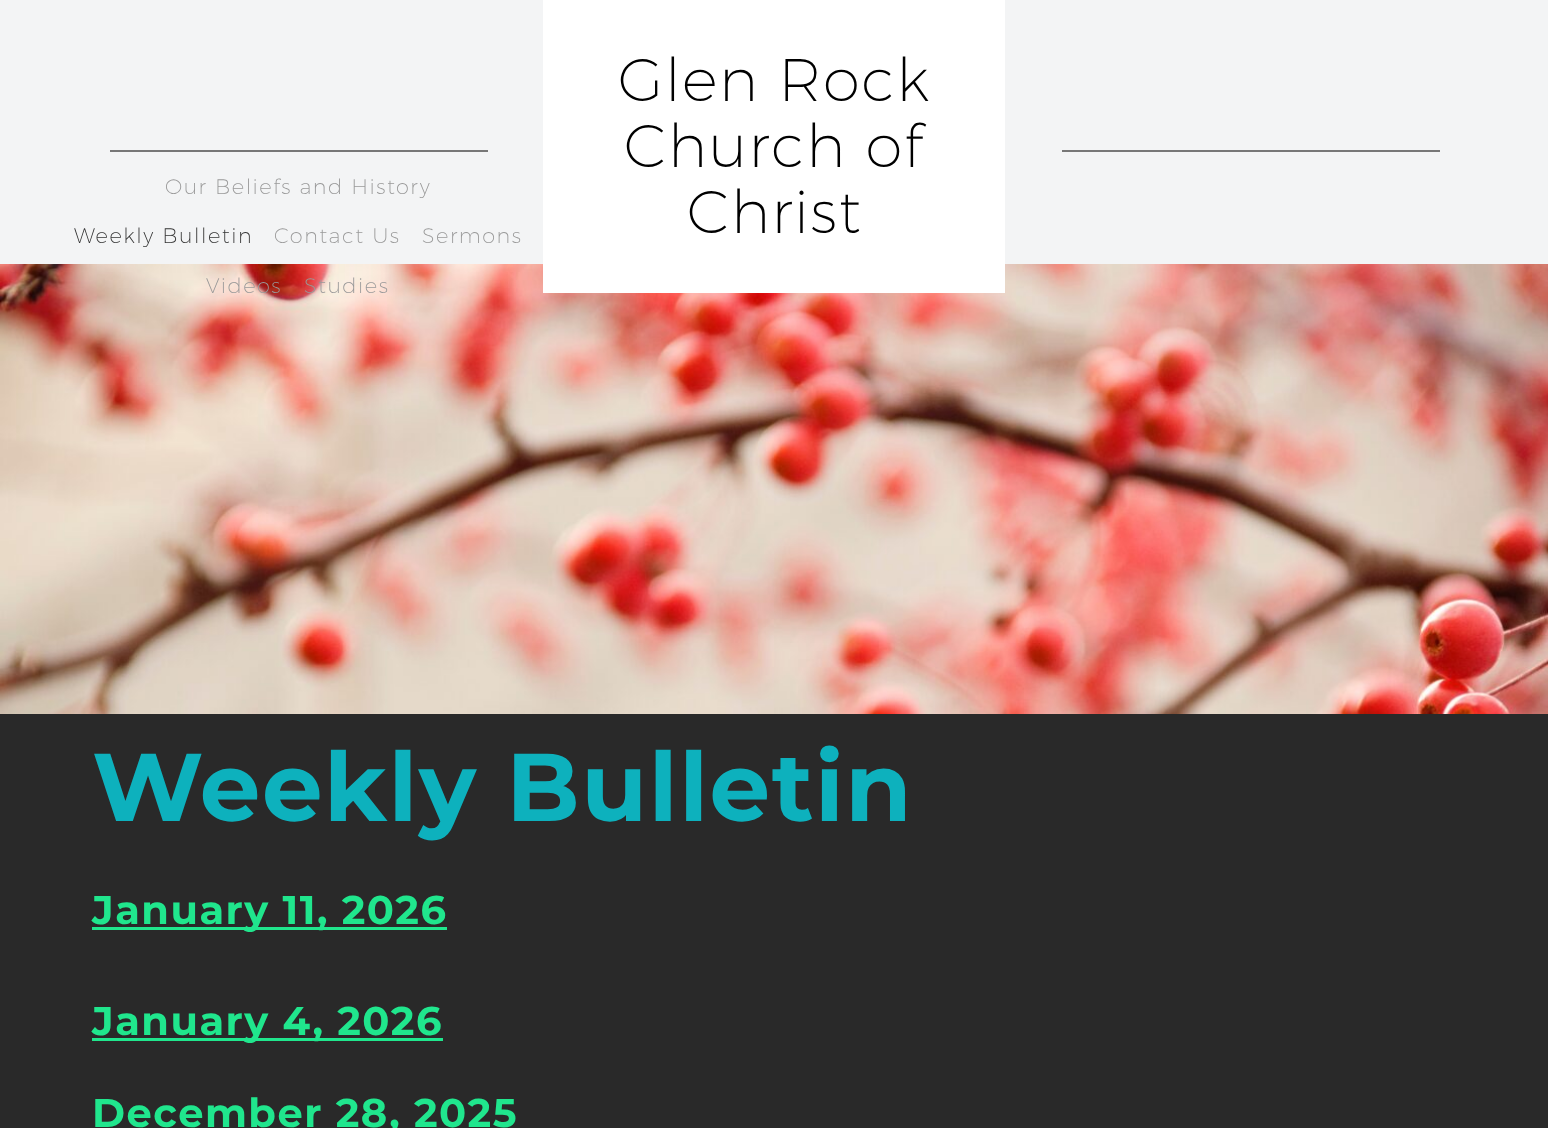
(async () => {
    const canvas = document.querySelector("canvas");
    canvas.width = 1548;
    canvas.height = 1128;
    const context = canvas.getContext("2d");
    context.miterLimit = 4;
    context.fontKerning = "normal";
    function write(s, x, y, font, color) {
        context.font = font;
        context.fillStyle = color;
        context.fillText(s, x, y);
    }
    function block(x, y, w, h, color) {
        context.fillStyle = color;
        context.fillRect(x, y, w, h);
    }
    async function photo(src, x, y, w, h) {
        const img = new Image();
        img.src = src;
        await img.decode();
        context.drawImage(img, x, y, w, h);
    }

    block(0, 0, 1548, 1128, "rgb(243, 244, 245)");
    await photo("media/1.png", 0, 264, 1548, 450);
    block(543, 0, 462, 293, "rgb(255, 255, 255)");
    context.letterSpacing = "1.5px";
    write("Glen Rock", 618, 101, "200 60px Montserrat", "rgb(0, 0, 0)");
    write("Church of", 624, 167, "200 60px Montserrat", "rgb(0, 0, 0)");
    write("Christ", 687, 233, "200 60px Montserrat", "rgb(0, 0, 0)");
    block(1062, 150, 378, 2, "rgb(119, 119, 119)");
    block(110, 150, 378, 2, "rgb(119, 119, 119)");
    write("Our Beliefs and History", 165, 194, "200 21px Montserrat", "rgb(153, 153, 153)");
    write("Weekly Bulletin", 74, 243, "200 21px Montserrat", "rgb(51, 51, 51)");
    write("Contact Us", 274, 243, "200 21px Montserrat", "rgb(153, 153, 153)");
    write("Sermons", 422, 243, "200 21px Montserrat", "rgb(153, 153, 153)");
    write("Videos", 206, 293, "200 21px Montserrat", "rgb(153, 153, 153)");
    write("Studies", 304, 293, "200 21px Montserrat", "rgb(153, 153, 153)");
    block(0, 714, 1548, 414, "rgb(41, 41, 41)");
    write("Weekly Bulletin", 92, 821, "bold 96px Montserrat", "rgb(13, 177, 189)");
    block(92, 927, 355, 3, "rgb(32, 230, 141)");
    write("January 11, 2026", 92, 924, "bold 40px Montserrat", "rgb(32, 230, 141)");
    block(92, 1038, 351, 3, "rgb(32, 230, 141)");
    write("January 4, 2026", 92, 1035, "bold 40px Montserrat", "rgb(32, 230, 141)");
    write("December 28, 2025", 92, 1127, "bold 40px Montserrat", "rgb(32, 230, 141)");
})();
